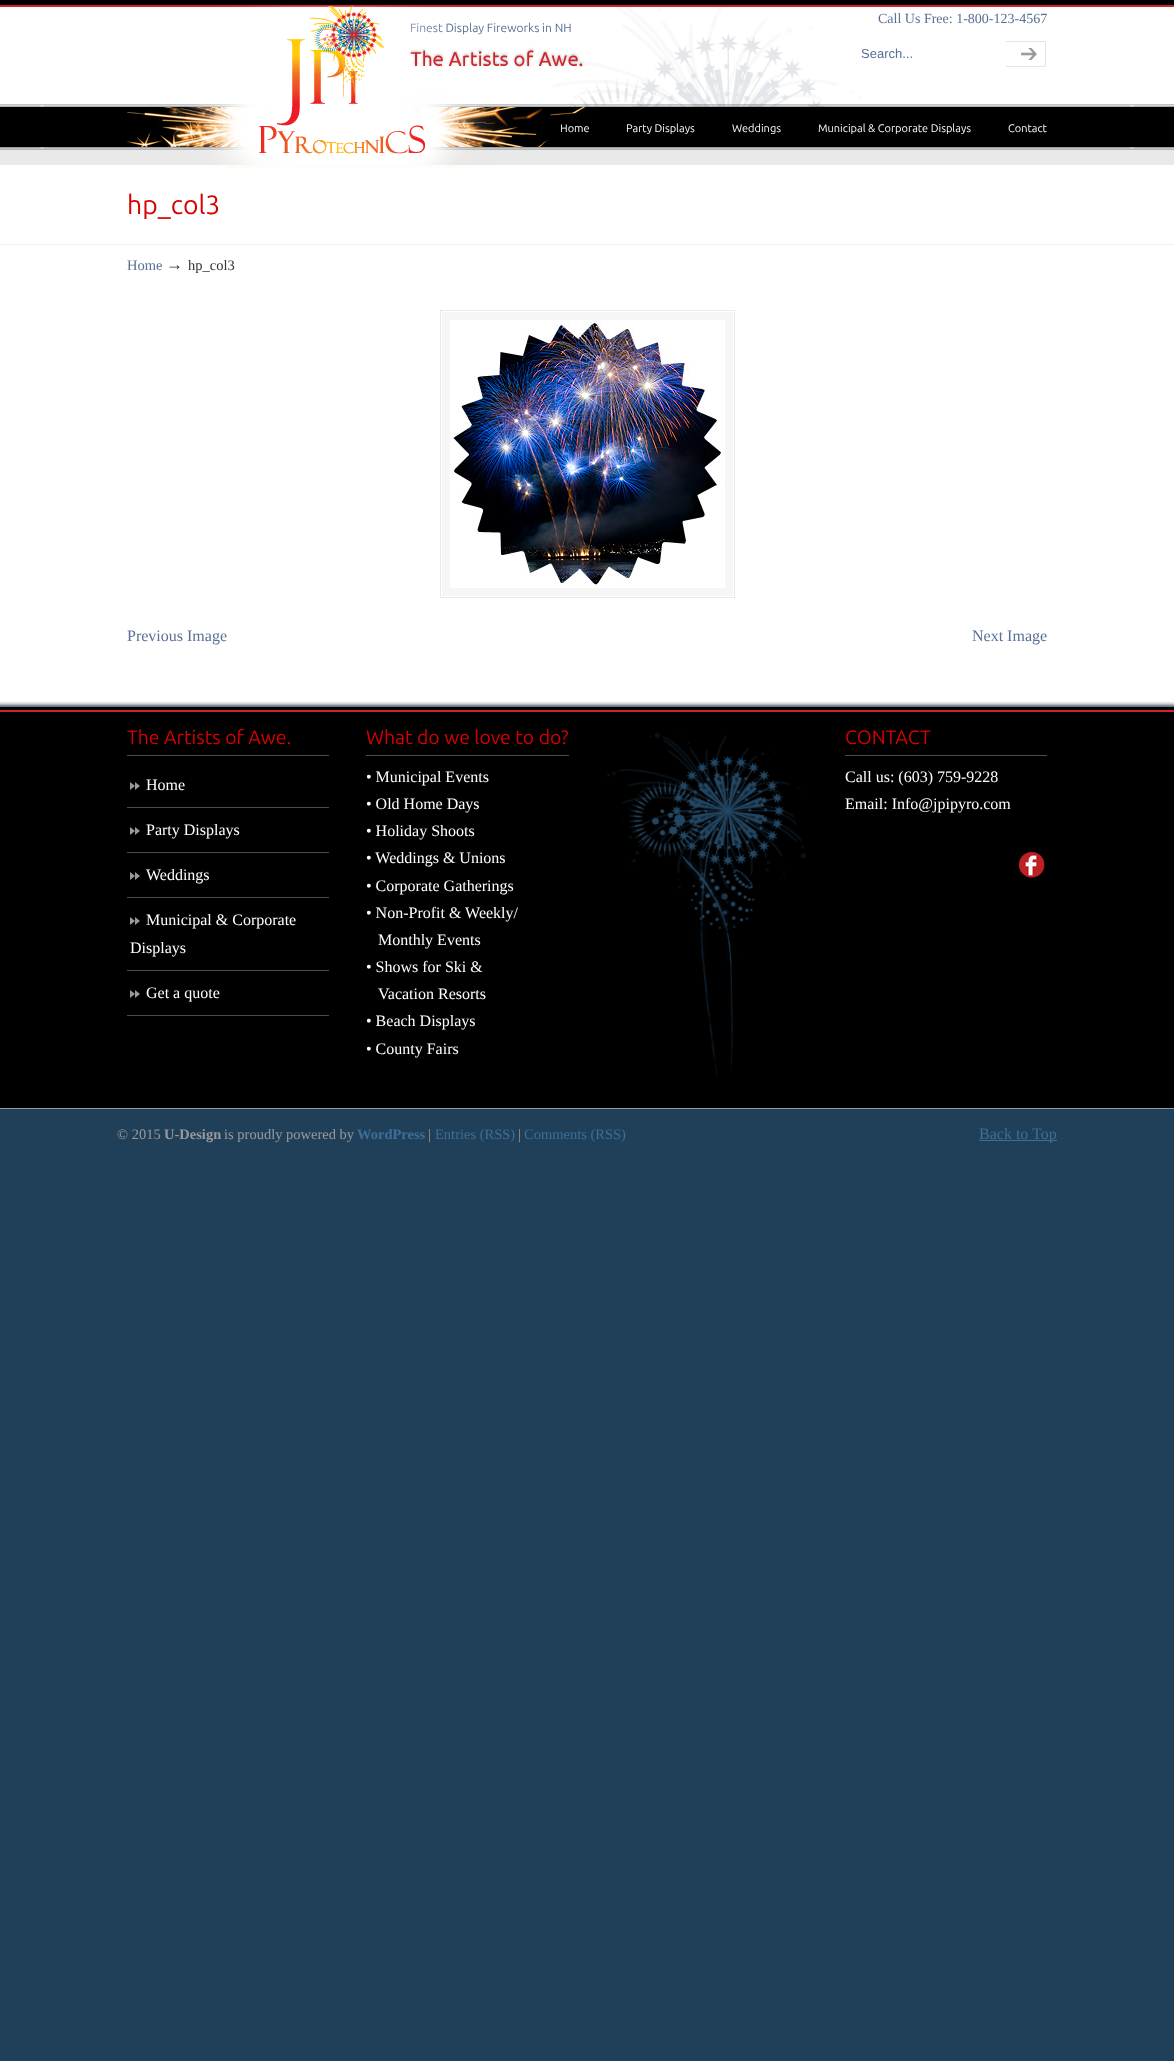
(async () => {
    const canvas = document.querySelector("canvas");
    canvas.width = 1174;
    canvas.height = 2061;
    const context = canvas.getContext("2d");
    context.miterLimit = 4;
    context.fontKerning = "normal";
    function write(s, x, y, font, color) {
        context.font = font;
        context.fillStyle = color;
        context.fillText(s, x, y);
    }
    function block(x, y, w, h, color) {
        context.fillStyle = color;
        context.fillRect(x, y, w, h);
    }
    async function photo(src, x, y, w, h) {
        const img = new Image();
        img.src = src;
        await img.decode();
        context.drawImage(img, x, y, w, h);
    }

    block(0, 0, 1174, 2061, "rgb(32, 64, 90)");
    block(0, 147, 1174, 18, "rgb(233, 233, 233)");
    await photo("media/1.png", 0, 0, 1174, 150);
    write("Finest Display Fireworks in NH", 410, 32, "12px Ubuntu", "rgb(88, 112, 150)");
    block(0, 165, 1174, 532, "rgb(255, 255, 255)");
    await photo("media/2.png", 127, 6, 459, 162);
    write("Call Us Free: 1-800-123-4567", 878, 23, "14px Liberation Serif", "rgb(88, 112, 150)");
    write("Search...", 861, 58, "13px Liberation Sans", "rgb(88, 112, 150)");
    await photo("media/3.png", 1006, 41, 40, 26);
    write("Home", 560, 132, "11px Ubuntu", "rgb(255, 255, 255)");
    write("Party Displays", 626, 132, "11px Ubuntu", "rgb(255, 255, 255)");
    write("Weddings", 732, 132, "11px Ubuntu", "rgb(255, 255, 255)");
    write("Municipal & Corporate Displays", 818, 132, "11px Ubuntu", "rgb(255, 255, 255)");
    write("Contact", 1008, 132, "11px Ubuntu", "rgb(255, 255, 255)");
    write("hp_col3", 127, 214, "26.5px Ubuntu", "rgb(217, 0, 0)");
    await photo("media/4.png", 0, 244, 1174, 1);
    write("Home", 127, 270, "14.5px Liberation Serif", "rgb(88, 112, 150)");
    write("→", 166, 270, "17px Liberation Serif", "rgb(51, 51, 51)");
    write("hp_col3", 188, 270, "14.5px Liberation Serif", "rgb(51, 51, 51)");
    block(442, 312, 291, 284, "rgb(246, 246, 246)");
    context.strokeStyle = "rgb(234, 234, 234)";
    context.strokeRect(440.5, 310.5, 294, 287);
    await photo("media/5.png", 450, 320, 275, 268);
    write("Previous Image", 127, 641, "16px Liberation Serif", "rgb(88, 112, 150)");
    write("Next Image", 972, 641, "16px Liberation Serif", "rgb(88, 112, 150)");
    block(0, 712, 1174, 396, "rgb(0, 0, 0)");
    await photo("media/6.png", 0, 697, 1174, 15);
    block(127, 755, 202, 1, "rgb(77, 77, 77)");
    write("The Artists of Awe.", 127, 744, "19.4px Ubuntu", "rgb(217, 0, 0)");
    block(127, 807, 202, 1, "rgb(77, 77, 77)");
    await photo("media/7.png", 130, 782, 10, 8);
    write("Home", 146, 790, "16px Liberation Serif", "rgb(255, 255, 255)");
    block(127, 852, 202, 1, "rgb(77, 77, 77)");
    await photo("media/7.png", 130, 827, 10, 8);
    write("Party Displays", 146, 835, "16px Liberation Serif", "rgb(255, 255, 255)");
    block(127, 897, 202, 1, "rgb(77, 77, 77)");
    await photo("media/7.png", 130, 872, 10, 8);
    write("Weddings", 146, 880, "16px Liberation Serif", "rgb(255, 255, 255)");
    block(127, 970, 202, 1, "rgb(77, 77, 77)");
    await photo("media/7.png", 130, 917, 10, 8);
    write("Municipal & Corporate", 146, 925, "16px Liberation Serif", "rgb(255, 255, 255)");
    write("Displays", 130, 953, "16px Liberation Serif", "rgb(255, 255, 255)");
    block(127, 1015, 202, 1, "rgb(77, 77, 77)");
    await photo("media/7.png", 130, 990, 10, 8);
    write("Get a quote", 146, 998, "16px Liberation Serif", "rgb(255, 255, 255)");
    block(366, 755, 203, 1, "rgb(77, 77, 77)");
    write("What do we love to do?", 366, 744, "19.4px Ubuntu", "rgb(217, 0, 0)");
    write("• Municipal Events", 366, 782, "16px Liberation Serif", "rgb(255, 255, 255)");
    write("• Old Home Days", 366, 809, "16px Liberation Serif", "rgb(255, 255, 255)");
    write("• Holiday Shoots", 366, 836, "16px Liberation Serif", "rgb(255, 255, 255)");
    write("• Weddings & Unions", 366, 863, "16px Liberation Serif", "rgb(255, 255, 255)");
    write("• Corporate Gatherings", 366, 891, "16px Liberation Serif", "rgb(255, 255, 255)");
    write("• Non-Profit & Weekly/", 366, 918, "16px Liberation Serif", "rgb(255, 255, 255)");
    write("Monthly Events", 378, 945, "16px Liberation Serif", "rgb(255, 255, 255)");
    write("• Shows for Ski &", 366, 972, "16px Liberation Serif", "rgb(255, 255, 255)");
    write("Vacation Resorts", 378, 999, "16px Liberation Serif", "rgb(255, 255, 255)");
    write("• Beach Displays", 366, 1026, "16px Liberation Serif", "rgb(255, 255, 255)");
    write("• County Fairs", 366, 1054, "16px Liberation Serif", "rgb(255, 255, 255)");
    await photo("media/8.png", 607, 732, 199, 346);
    block(845, 755, 202, 1, "rgb(77, 77, 77)");
    write("CONTACT", 845, 744, "19.4px Ubuntu", "rgb(217, 0, 0)");
    write("Call us: (603) 759-9228", 845, 782, "16px Liberation Serif", "rgb(255, 255, 255)");
    write("Email: Info@jpipyro.com", 845, 809, "16px Liberation Serif", "rgb(255, 255, 255)");
    await photo("media/9.png", 1019, 852, 26, 26);
    await photo("media/10.png", 0, 1108, 1174, 2);
    write("© 2015", 117, 1139, "14.5px Liberation Serif", "rgb(153, 153, 153)");
    write("U-Design", 164, 1139, "bold 14.5px Liberation Serif", "rgb(153, 153, 153)");
    write("is proudly powered by", 224, 1139, "14.5px Liberation Serif", "rgb(153, 153, 153)");
    write("WordPress", 357, 1139, "bold 14.5px Liberation Serif", "rgb(61, 110, 151)");
    write("|", 428, 1139, "14.5px Liberation Serif", "rgb(153, 153, 153)");
    write("Entries (RSS)", 435, 1139, "14.5px Liberation Serif", "rgb(61, 110, 151)");
    write("|", 518, 1139, "14.5px Liberation Serif", "rgb(153, 153, 153)");
    write("Comments (RSS)", 524, 1139, "14.5px Liberation Serif", "rgb(61, 110, 151)");
    block(979, 1140, 78, 1, "rgb(61, 110, 151)");
    write("Back to Top", 979, 1139, "16px Liberation Serif", "rgb(61, 110, 151)");
})();
